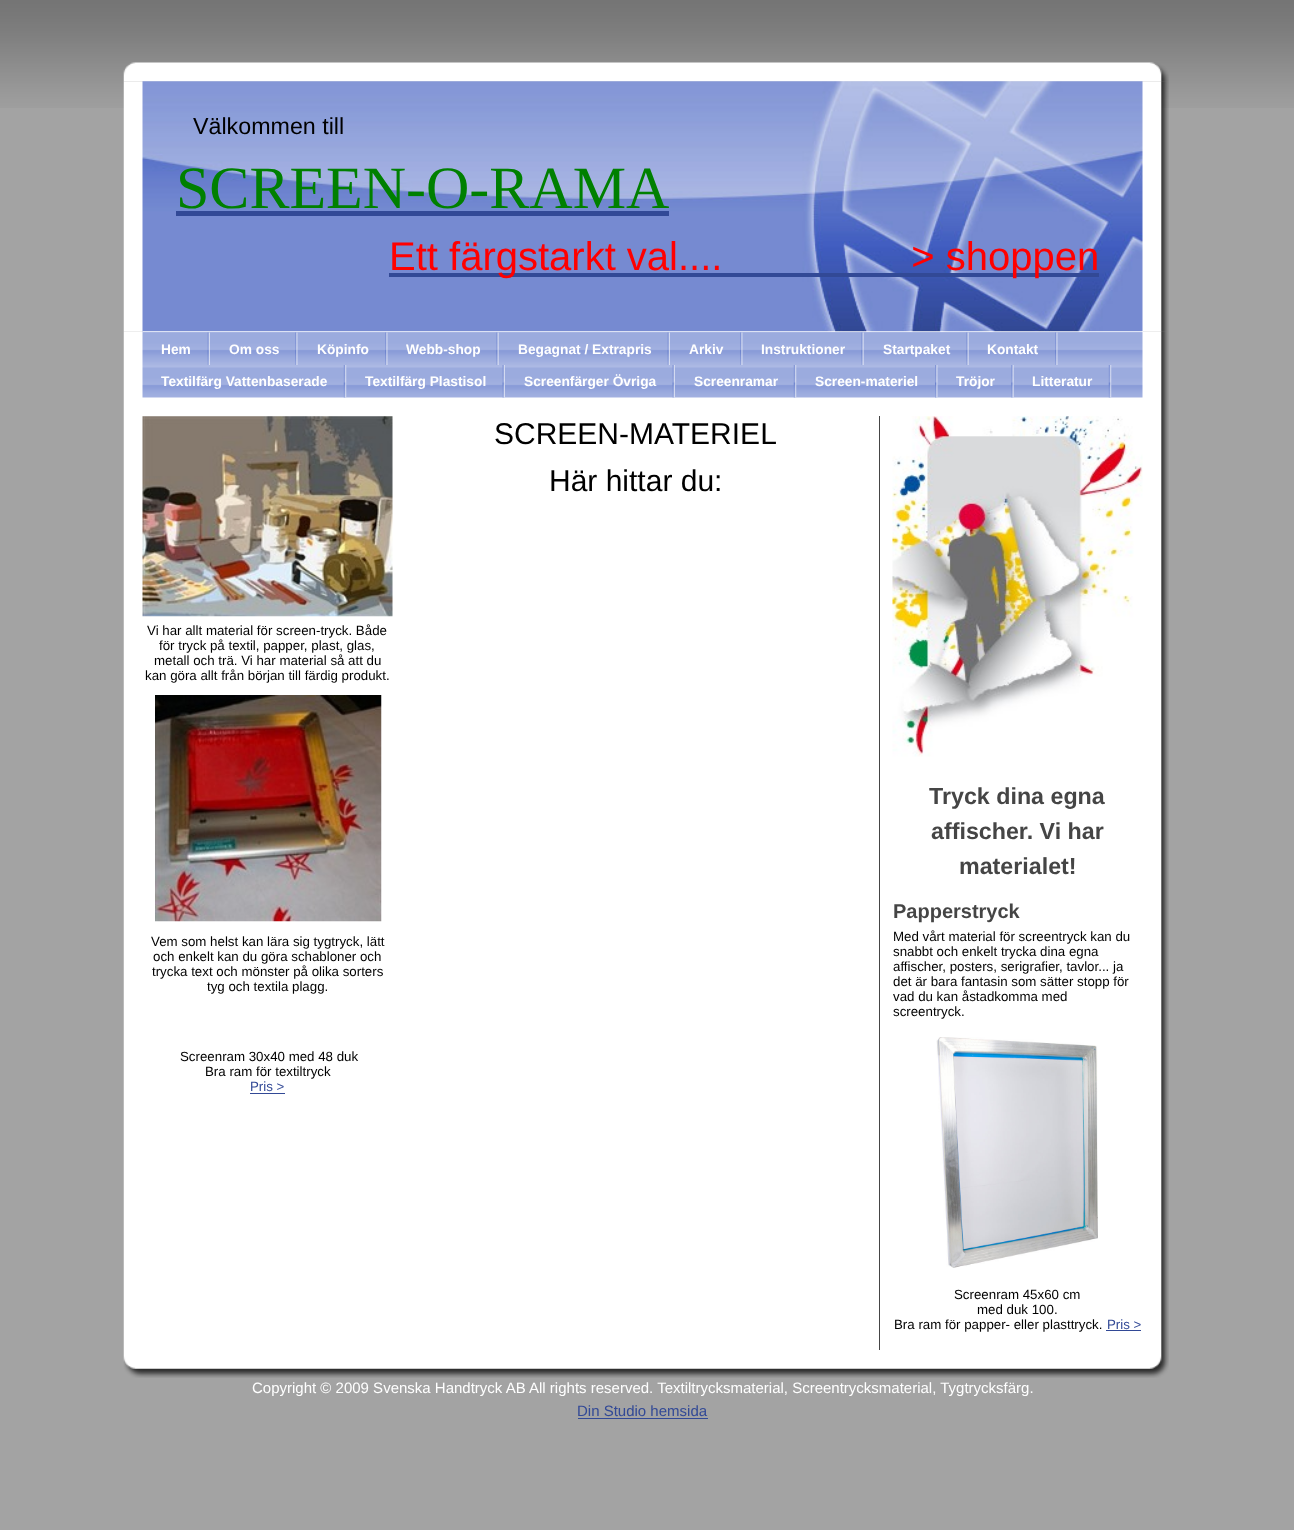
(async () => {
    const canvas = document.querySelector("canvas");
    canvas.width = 1294;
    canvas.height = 1530;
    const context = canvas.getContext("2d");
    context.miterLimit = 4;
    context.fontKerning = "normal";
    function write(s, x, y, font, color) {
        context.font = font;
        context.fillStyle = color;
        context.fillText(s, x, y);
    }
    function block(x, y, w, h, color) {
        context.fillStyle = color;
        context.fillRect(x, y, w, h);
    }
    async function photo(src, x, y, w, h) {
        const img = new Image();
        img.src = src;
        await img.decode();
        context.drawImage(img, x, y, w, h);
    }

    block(0, 0, 1294, 1530, "rgb(163, 163, 163)");
    await photo("media/1.png", 0, 0, 1294, 108);
    await photo("media/2.png", 123, 62, 1046, 20);
    await photo("media/5.png", 123, 331, 1046, 1019);
    await photo("media/6.png", 142, 331, 1001, 67);
    block(143, 331, 1000, 1, "rgb(255, 255, 255)");
    await photo("media/3.png", 123, 81, 1046, 251);
    await photo("media/4.png", 142, 81, 1001, 251);
    write("Välkommen till", 193, 134, "23.25px Liberation Sans", "rgb(0, 0, 0)");
    write("SCREEN-O-RAMA", 176, 208, "60px Liberation Serif", "rgb(0, 128, 0)");
    block(176, 211, 493, 5, "rgb(50, 73, 150)");
    block(389, 273, 710, 4, "rgb(50, 73, 150)");
    write("Ett färgstarkt val....                 > shoppen", 389, 270, "40px Liberation Sans", "rgb(255, 0, 0)");
    await photo("media/7.png", 207, 332, 3, 33);
    write("Hem", 161, 354, "bold 13.75px Liberation Sans", "rgb(255, 255, 255)");
    await photo("media/8.png", 295, 332, 3, 33);
    write("Om oss", 229, 354, "bold 13.75px Liberation Sans", "rgb(255, 255, 255)");
    await photo("media/8.png", 385, 332, 3, 33);
    write("Köpinfo", 317, 354, "bold 13.75px Liberation Sans", "rgb(255, 255, 255)");
    await photo("media/9.png", 496, 332, 3, 33);
    write("Webb-shop", 406, 354, "bold 13.75px Liberation Sans", "rgb(255, 255, 255)");
    await photo("media/7.png", 667, 332, 3, 33);
    write("Begagnat / Extrapris", 518, 354, "bold 13.75px Liberation Sans", "rgb(255, 255, 255)");
    await photo("media/8.png", 740, 332, 3, 33);
    write("Arkiv", 689, 354, "bold 13.75px Liberation Sans", "rgb(255, 255, 255)");
    await photo("media/9.png", 861, 332, 3, 33);
    write("Instruktioner", 761, 354, "bold 13.75px Liberation Sans", "rgb(255, 255, 255)");
    await photo("media/9.png", 966, 332, 3, 33);
    write("Startpaket", 883, 354, "bold 13.75px Liberation Sans", "rgb(255, 255, 255)");
    await photo("media/8.png", 1055, 332, 3, 33);
    write("Kontakt", 987, 354, "bold 13.75px Liberation Sans", "rgb(255, 255, 255)");
    await photo("media/10.png", 343, 365, 4, 33);
    write("Textilfärg Vattenbaserade", 161, 386, "bold 13.75px Liberation Sans", "rgb(255, 255, 255)");
    await photo("media/11.png", 502, 365, 3, 33);
    write("Textilfärg Plastisol", 365, 386, "bold 13.75px Liberation Sans", "rgb(255, 255, 255)");
    await photo("media/11.png", 672, 365, 3, 33);
    write("Screenfärger Övriga", 524, 386, "bold 13.75px Liberation Sans", "rgb(255, 255, 255)");
    await photo("media/10.png", 793, 365, 4, 33);
    write("Screenramar", 694, 386, "bold 13.75px Liberation Sans", "rgb(255, 255, 255)");
    await photo("media/12.png", 935, 365, 3, 33);
    write("Screen-materiel", 815, 386, "bold 13.75px Liberation Sans", "rgb(255, 255, 255)");
    await photo("media/13.png", 1011, 365, 3, 33);
    write("Tröjor", 956, 386, "bold 13.75px Liberation Sans", "rgb(255, 255, 255)");
    await photo("media/10.png", 1108, 365, 4, 33);
    write("Litteratur", 1032, 386, "bold 13.75px Liberation Sans", "rgb(255, 255, 255)");
    await photo("media/14.png", 142, 416, 251, 201);
    write("Vi har allt material för screen-tryck. Både", 147, 635, "13.3px Liberation Sans", "rgb(0, 0, 0)");
    write("för tryck på textil, papper, plast, glas,", 159, 650, "13.3px Liberation Sans", "rgb(0, 0, 0)");
    write("metall och trä. Vi har material så att du", 154, 665, "13.3px Liberation Sans", "rgb(0, 0, 0)");
    write("kan göra allt från början till färdig produkt.", 145, 680, "13.3px Liberation Sans", "rgb(0, 0, 0)");
    await photo("media/15.png", 155, 695, 227, 227);
    write("Vem som helst kan lära sig tygtryck, lätt", 151, 946, "13.3px Liberation Sans", "rgb(0, 0, 0)");
    write("och enkelt kan du göra schabloner och", 153, 961, "13.3px Liberation Sans", "rgb(0, 0, 0)");
    write("trycka text och mönster på olika sorters", 152, 976, "13.3px Liberation Sans", "rgb(0, 0, 0)");
    write("tyg och textila plagg.", 207, 991, "13.3px Liberation Sans", "rgb(0, 0, 0)");
    write("Screenram 30x40 med 48 duk", 180, 1061, "13.3px Liberation Sans", "rgb(0, 0, 0)");
    write("Bra ram för textiltryck", 205, 1076, "13.3px Liberation Sans", "rgb(0, 0, 0)");
    write("Pris >", 250, 1091, "13.3px Liberation Sans", "rgb(50, 73, 150)");
    block(250, 1093, 35, 1, "rgb(50, 73, 150)");
    write("SCREEN-MATERIEL", 494, 444, "30px Liberation Sans", "rgb(0, 0, 0)");
    write("Här hittar du:", 549, 491, "30px Liberation Sans", "rgb(0, 0, 0)");
    block(879, 416, 1, 934, "rgb(69, 69, 69)");
    await photo("media/16.png", 892, 416, 251, 341);
    write("Tryck dina egna", 929, 804, "bold 23.25px Liberation Sans", "rgb(69, 69, 69)");
    write("affischer. Vi har", 931, 839, "bold 23.25px Liberation Sans", "rgb(69, 69, 69)");
    write("materialet!", 959, 874, "bold 23.25px Liberation Sans", "rgb(69, 69, 69)");
    write("Papperstryck", 893, 918, "bold 20px Liberation Sans", "rgb(69, 69, 69)");
    write("Med vårt material för screentryck kan du", 893, 941, "13.3px Liberation Sans", "rgb(0, 0, 0)");
    write("snabbt och enkelt trycka dina egna", 893, 956, "13.3px Liberation Sans", "rgb(0, 0, 0)");
    write("affischer, posters, serigrafier, tavlor... ja", 893, 971, "13.3px Liberation Sans", "rgb(0, 0, 0)");
    write("det är bara fantasin som sätter stopp för", 893, 986, "13.3px Liberation Sans", "rgb(0, 0, 0)");
    write("vad du kan åstadkomma med", 893, 1001, "13.3px Liberation Sans", "rgb(0, 0, 0)");
    write("screentryck.", 893, 1016, "13.3px Liberation Sans", "rgb(0, 0, 0)");
    await photo("media/17.png", 936, 1037, 162, 231);
    write("Screenram 45x60 cm", 954, 1299, "13.3px Liberation Sans", "rgb(0, 0, 0)");
    write("med duk 100.", 977, 1314, "13.3px Liberation Sans", "rgb(0, 0, 0)");
    write("Bra ram för papper- eller plasttryck.", 894, 1329, "13.3px Liberation Sans", "rgb(0, 0, 0)");
    write("Pris >", 1107, 1329, "13.3px Liberation Sans", "rgb(50, 73, 150)");
    block(1106, 1330, 35, 1, "rgb(50, 73, 150)");
    await photo("media/18.png", 123, 1350, 1046, 28);
    write("Copyright © 2009 Svenska Handtryck AB All rights reserved. Textiltrycksmaterial, Screentrycksmaterial, Tygtrycksfärg.", 252, 1393, "15px Liberation Sans", "rgb(255, 255, 255)");
    write("Din Studio hemsida", 577, 1416, "15px Liberation Sans", "rgb(50, 73, 150)");
    block(578, 1418, 130, 1, "rgb(50, 73, 150)");
})();
